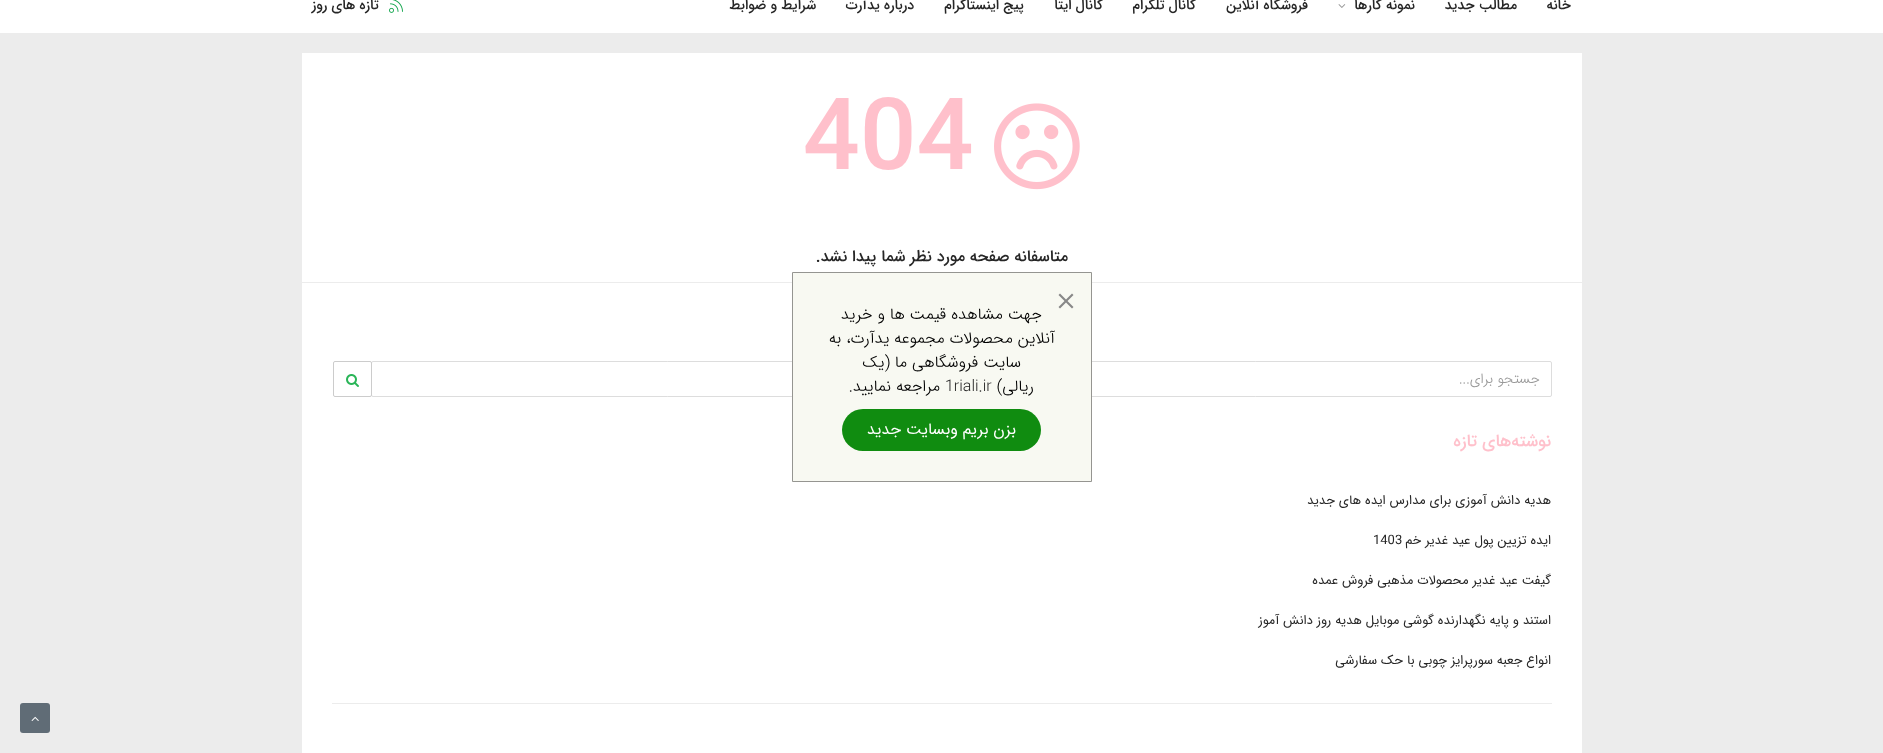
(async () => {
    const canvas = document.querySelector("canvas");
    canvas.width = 1883;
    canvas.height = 753;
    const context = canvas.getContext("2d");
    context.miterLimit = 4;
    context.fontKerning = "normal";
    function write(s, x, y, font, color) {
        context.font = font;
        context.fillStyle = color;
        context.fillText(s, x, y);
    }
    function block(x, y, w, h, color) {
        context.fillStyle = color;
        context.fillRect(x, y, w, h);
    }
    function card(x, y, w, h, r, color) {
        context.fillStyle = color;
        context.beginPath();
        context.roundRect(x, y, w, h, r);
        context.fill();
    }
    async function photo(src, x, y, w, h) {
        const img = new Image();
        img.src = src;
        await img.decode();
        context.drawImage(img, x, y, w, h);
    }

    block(0, 0, 1883, 753, "rgb(236, 236, 236)");
    block(0, 0, 1883, 33, "rgb(255, 255, 255)");
    context.direction = "rtl";
    write("خانه", 1571, 9, "500 14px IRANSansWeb", "rgb(38, 38, 38)");
    write("مطالب جدید", 1517, 9, "500 14px IRANSansWeb", "rgb(38, 38, 38)");
    write("نمونه کارها", 1415, 9, "500 14px IRANSansWeb", "rgb(38, 38, 38)");
    await photo("media/1.png", 1338, 4, 8, 4);
    write("فروشگاه آنلاین", 1308, 9, "500 14px IRANSansWeb", "rgb(38, 38, 38)");
    write("کانال تلگرام", 1196, 9, "500 14px IRANSansWeb", "rgb(38, 38, 38)");
    write("کانال ایتا", 1103, 9, "500 14px IRANSansWeb", "rgb(38, 38, 38)");
    write("پیج اینستاگرام", 1024, 9, "500 14px IRANSansWeb", "rgb(38, 38, 38)");
    write("درباره یدآرت", 914, 9, "500 14px IRANSansWeb", "rgb(38, 38, 38)");
    write("شرایط و ضوابط", 816, 9, "500 14px IRANSansWeb", "rgb(38, 38, 38)");
    await photo("media/2.png", 389, 0, 14, 13);
    write("تازه های روز", 379, 9, "500 14px IRANSansWeb", "rgb(38, 38, 38)");
    block(302, 53, 1280, 229, "rgb(255, 255, 255)");
    await photo("media/3.png", 994, 103, 86, 87);
    context.direction = "ltr";
    write("404", 803, 169, "500 100px IRANSansWeb", "rgb(255, 192, 203)");
    context.direction = "rtl";
    write("متاسفانه صفحه مورد نظر شما پیدا نشد.", 1068, 261, "500 16px IRANSansWeb", "rgb(38, 38, 38)");
    block(302, 283, 1280, 470, "rgb(255, 255, 255)");
    context.beginPath();
    context.roundRect(371.5, 361.5, 1180, 35, 1.5);
    context.strokeStyle = "rgb(221, 221, 221)";
    context.stroke();
    write("جستجو برای...", 1540, 383, "300 14px IRANSansWeb", "rgb(153, 153, 153)");
    context.fillStyle = "rgb(255, 255, 255)";
    context.beginPath();
    context.roundRect(333.5, 361.5, 38, 35, 1.5);
    context.fill();
    context.strokeStyle = "rgb(204, 204, 204)";
    context.stroke();
    await photo("media/4.png", 346, 374, 13, 13);
    block(332, 703, 1220, 1, "rgb(236, 236, 236)");
    write("نوشته‌های تازه", 1551, 446, "500 17px IRANSansWeb", "rgb(255, 192, 203)");
    write("هدیه دانش آموزی برای مدارس ایده های جدید", 1551, 504, "13px IRANSansWeb", "rgb(38, 38, 38)");
    write("ایده تزیین پول عید غدیر خم", 1551, 544, "13px IRANSansWeb", "rgb(38, 38, 38)");
    context.direction = "ltr";
    write("1403", 1373, 544, "13px IRANSansWeb", "rgb(38, 38, 38)");
    context.direction = "rtl";
    write("گیفت عید غدیر محصولات مذهبی فروش عمده", 1551, 584, "13px IRANSansWeb", "rgb(38, 38, 38)");
    write("استند و پایه نگهدارنده گوشی موبایل هدیه روز دانش آموز", 1551, 624, "13px IRANSansWeb", "rgb(38, 38, 38)");
    write("انواع جعبه سورپرایز چوبی با حک سفارشی", 1551, 664, "13px IRANSansWeb", "rgb(38, 38, 38)");
    context.fillStyle = "rgb(248, 249, 242)";
    context.beginPath();
    context.rect(792.5, 272.5, 299, 209);
    context.fill();
    context.strokeStyle = "rgb(149, 149, 145)";
    context.stroke();
    await photo("media/5.png", 1058, 293, 16, 16);
    write("جهت مشاهده قیمت ها و خرید", 1042, 319, "300 16px IRANSansWeb", "rgb(0, 0, 0)");
    write("آنلاین محصولات مجموعه یدآرت، به", 1055, 343, "300 16px IRANSansWeb", "rgb(0, 0, 0)");
    write("سایت فروشگاهی ما (یک", 1021, 367, "300 16px IRANSansWeb", "rgb(0, 0, 0)");
    write("ریالی)", 1034, 391, "300 16px IRANSansWeb", "rgb(0, 0, 0)");
    context.direction = "ltr";
    write("1riali.ir", 945, 391, "300 16px IRANSansWeb", "rgb(38, 38, 38)");
    context.direction = "rtl";
    write("مراجعه نمایید.", 940, 391, "300 16px IRANSansWeb", "rgb(0, 0, 0)");
    card(842, 409, 199, 42, 21, "rgb(16, 140, 16)");
    write("بزن بریم وبسایت جدید", 1016, 434, "16px IRANSansWeb", "rgb(255, 255, 255)");
    card(20, 703, 30, 30, 3, "rgb(96, 108, 118)");
    await photo("media/6.png", 31, 716, 8, 5);
})();
